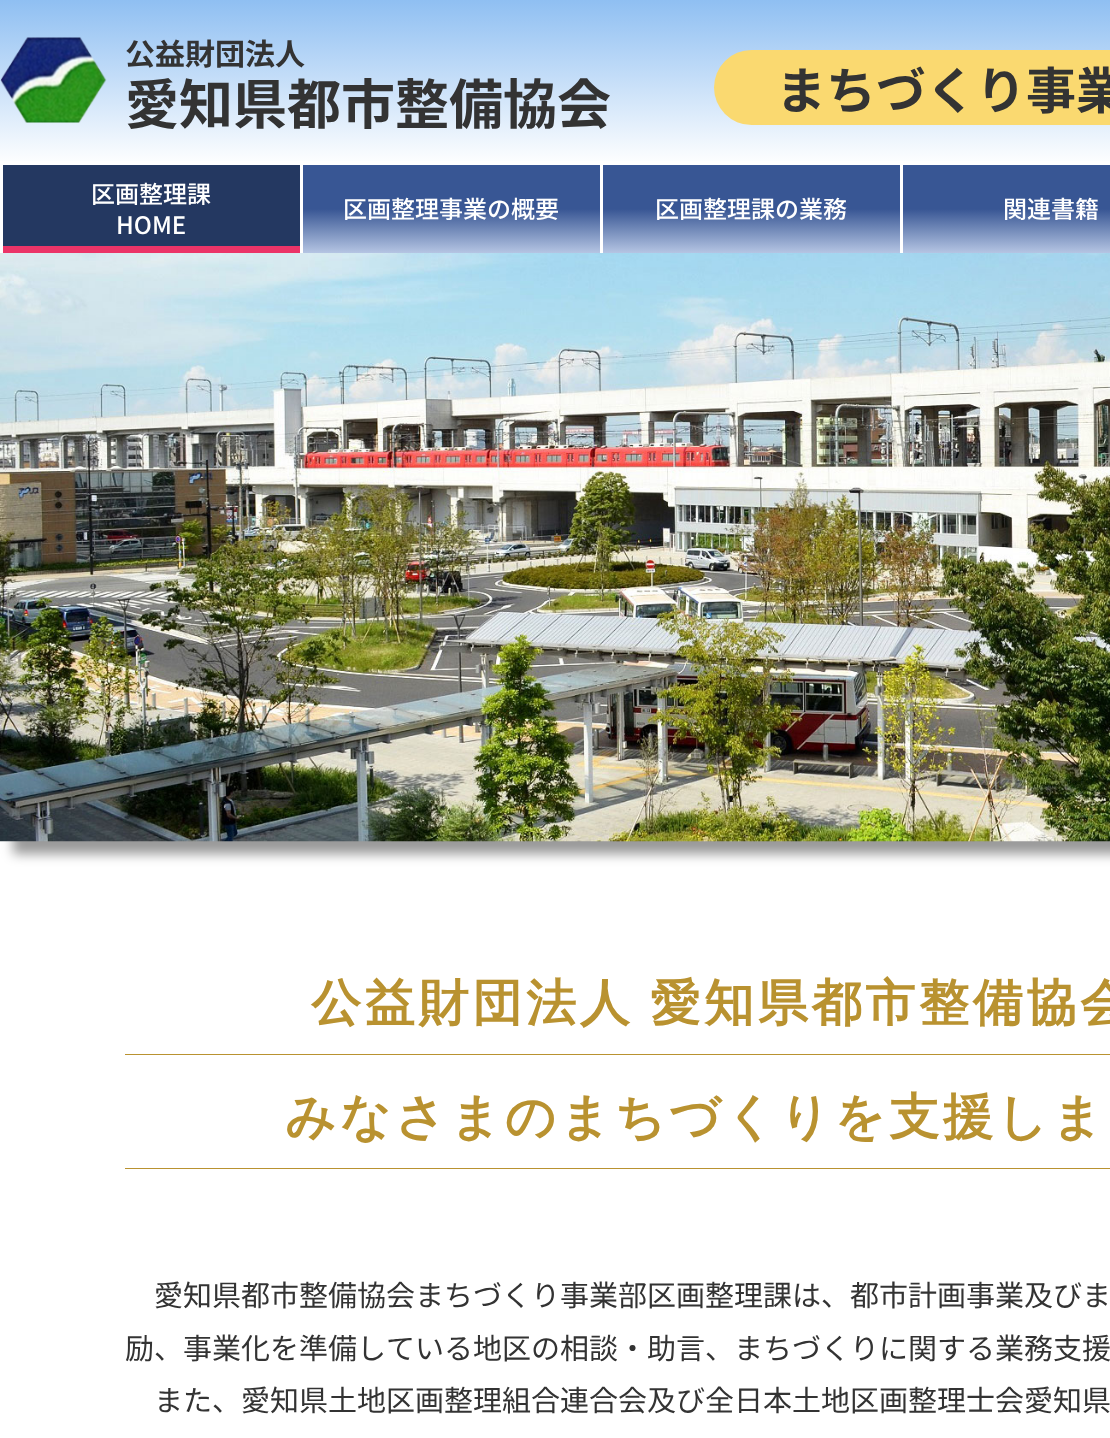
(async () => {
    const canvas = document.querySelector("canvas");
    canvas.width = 1110;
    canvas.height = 1438;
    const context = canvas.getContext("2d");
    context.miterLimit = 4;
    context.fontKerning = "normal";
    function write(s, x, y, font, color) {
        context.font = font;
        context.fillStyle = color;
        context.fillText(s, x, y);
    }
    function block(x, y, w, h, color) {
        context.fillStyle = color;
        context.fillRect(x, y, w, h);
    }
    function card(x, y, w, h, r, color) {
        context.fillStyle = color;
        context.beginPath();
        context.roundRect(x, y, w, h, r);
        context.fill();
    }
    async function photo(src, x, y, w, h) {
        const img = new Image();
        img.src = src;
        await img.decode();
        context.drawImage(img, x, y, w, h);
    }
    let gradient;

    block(0, 0, 1110, 1438, "rgb(255, 255, 255)");
    gradient = context.createLinearGradient(555, 0, 555, 165);
    gradient.addColorStop(0, "rgb(143, 191, 242)");
    gradient.addColorStop(1, "rgb(255, 255, 255)");
    context.fillStyle = gradient;
    context.fillRect(0, 0, 1110, 161);
    await photo("media/1.png", 0, 37, 107, 86);
    write("公益財団法人", 125, 65, "bold 30px Noto Sans JP", "rgb(51, 51, 51)");
    write("愛知県都市整備協会", 125, 124, "bold 54px Noto Sans JP", "rgb(51, 51, 51)");
    card(714, 50, 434, 75, 37.5, "rgb(250, 217, 112)");
    write("まちづくり事業", 776, 109, "bold 50px Noto Sans JP", "rgb(51, 51, 51)");
    context.fillStyle = "rgba(0, 0, 0, 0.4)";
    context.filter = "blur(6px)";
    context.beginPath();
    context.rect(13, 253, 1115, 601);
    context.fill();
    context.filter = "none";
    gradient = context.createLinearGradient(555, 165, 555, 253);
    gradient.addColorStop(0, "rgb(56, 86, 148)");
    gradient.addColorStop(0.5, "rgb(56, 86, 148)");
    gradient.addColorStop(1, "rgb(181, 197, 227)");
    context.fillStyle = gradient;
    context.fillRect(303, 165, 807, 88);
    block(3, 165, 297, 81, "rgb(36, 56, 97)");
    write("区画整理課", 91, 203, "500 24px Noto Sans JP", "rgb(255, 255, 255)");
    write("HOME", 116, 234, "500 24px Noto Sans JP", "rgb(255, 255, 255)");
    block(3, 246, 297, 7, "rgb(235, 52, 104)");
    block(300, 241, 3, 12, "rgb(255, 255, 255)");
    write("区画整理事業の概要", 343, 218, "500 24px Noto Sans JP", "rgb(255, 255, 255)");
    block(600, 165, 3, 88, "rgb(255, 255, 255)");
    write("区画整理課の業務", 655, 218, "500 24px Noto Sans JP", "rgb(255, 255, 255)");
    block(900, 165, 3, 88, "rgb(255, 255, 255)");
    write("関連書籍", 1003, 218, "500 24px Noto Sans JP", "rgb(255, 255, 255)");
    await photo("media/2.png", 0, 253, 1110, 589);
    block(125, 1054, 985, 1, "rgb(185, 146, 48)");
    context.letterSpacing = "3.75px";
    context.wordSpacing = "-2px";
    write("公益財団法人 愛知県都市整備協会", 311, 1020, "bold 50px WenQuanYi Zen Hei", "rgb(185, 146, 48)");
    block(125, 1168, 985, 1, "rgb(185, 146, 48)");
    context.wordSpacing = "0px";
    write("みなさまのまちづくりを支援しま", 285, 1134, "bold 50px WenQuanYi Zen Hei", "rgb(185, 146, 48)");
    context.letterSpacing = "0px";
    write("愛知県都市整備協会まちづくり事業部区画整理課は、都市計画事業及びま", 154, 1306, "29px Noto Sans JP", "rgb(51, 51, 51)");
    write("励、事業化を準備している地区の相談・助言、まちづくりに関する業務支援", 125, 1359, "29px Noto Sans JP", "rgb(51, 51, 51)");
    write("また、愛知県土地区画整理組合連合会及び全日本土地区画整理士会愛知県", 154, 1411, "29px Noto Sans JP", "rgb(51, 51, 51)");
})();
